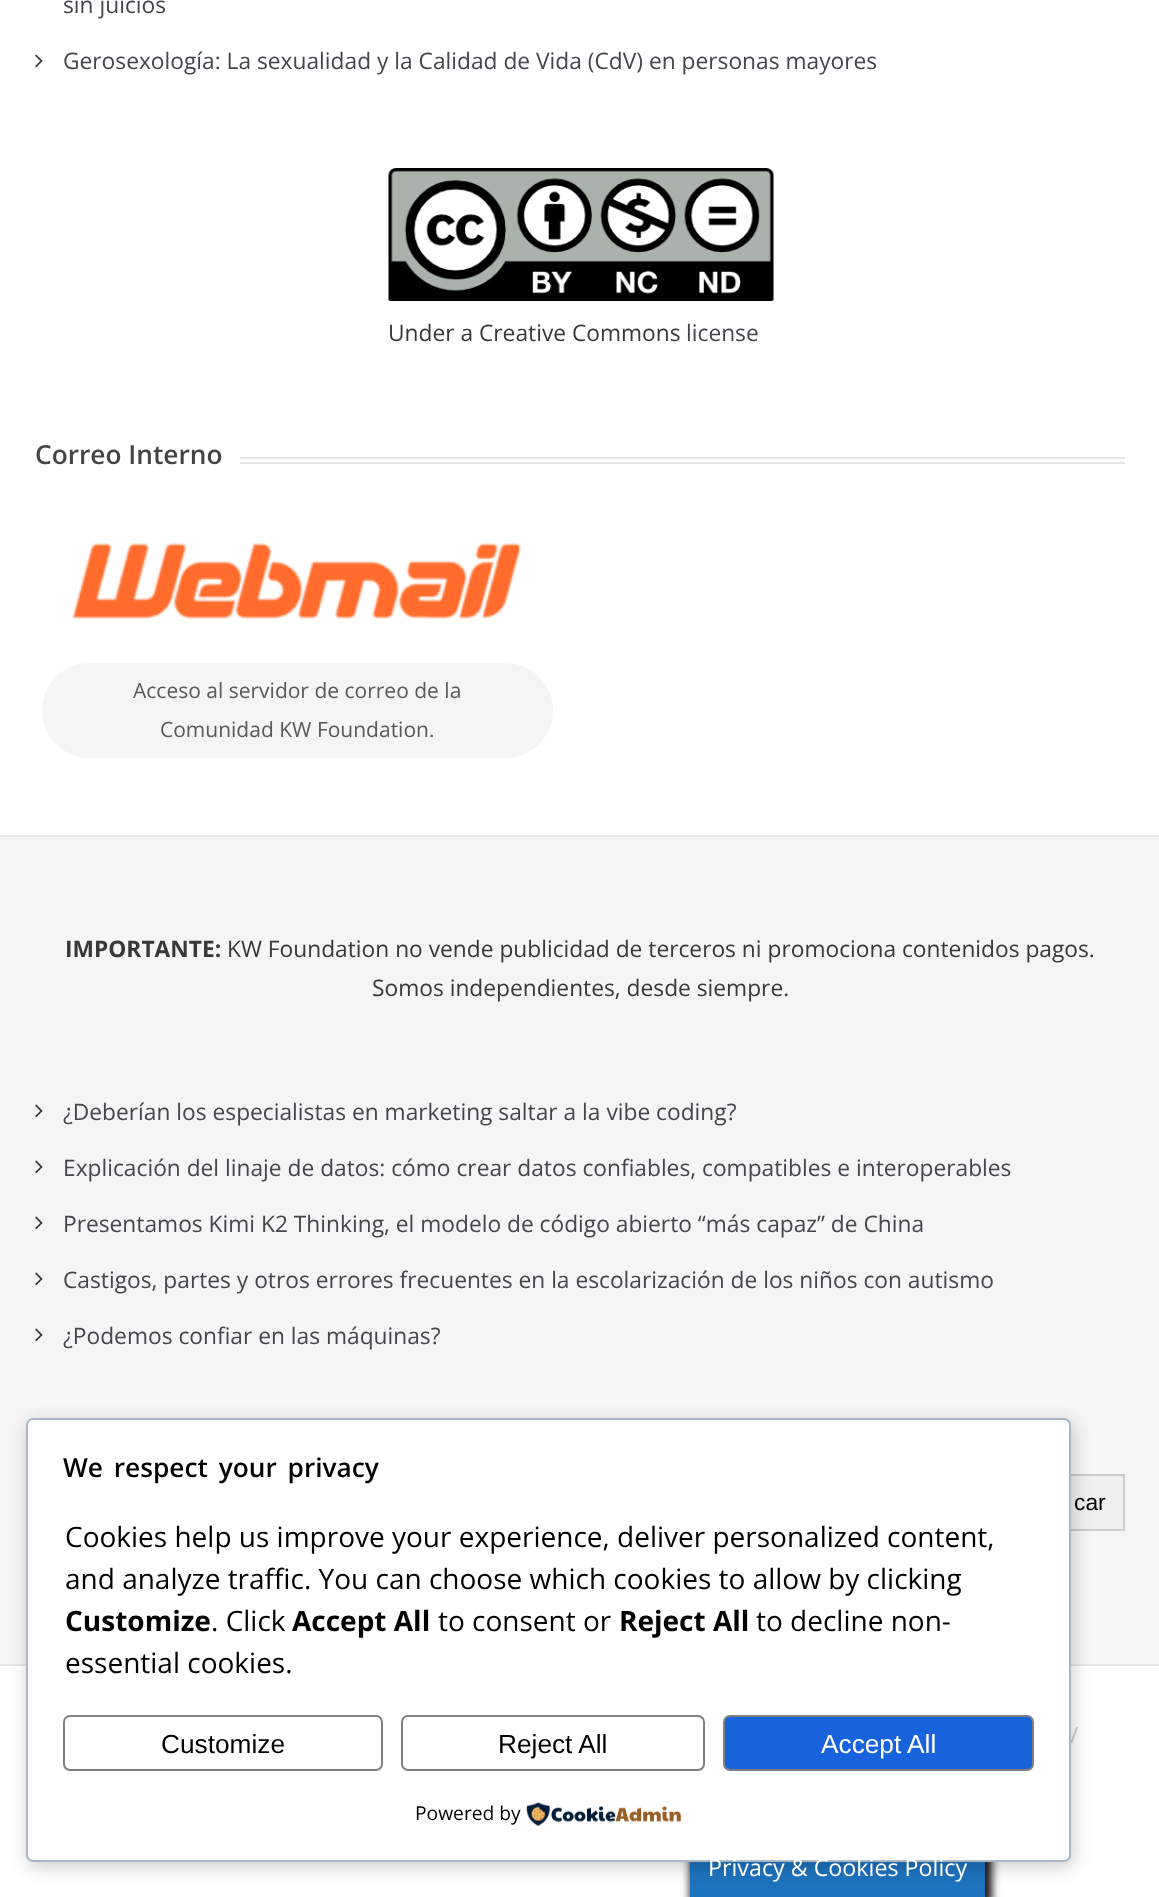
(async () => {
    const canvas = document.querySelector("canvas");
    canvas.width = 1159;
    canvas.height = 1897;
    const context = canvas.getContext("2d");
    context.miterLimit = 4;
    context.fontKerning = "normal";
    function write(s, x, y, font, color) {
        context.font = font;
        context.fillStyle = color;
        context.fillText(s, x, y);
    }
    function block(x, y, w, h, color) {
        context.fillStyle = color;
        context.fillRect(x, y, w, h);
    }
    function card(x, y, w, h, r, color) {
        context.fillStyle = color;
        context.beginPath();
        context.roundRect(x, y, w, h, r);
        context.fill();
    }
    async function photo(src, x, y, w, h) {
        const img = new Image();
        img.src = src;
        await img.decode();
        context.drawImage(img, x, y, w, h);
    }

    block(0, 0, 1159, 1897, "rgb(255, 255, 255)");
    write("sin juicios", 63, 13, "22.75px Open Sans", "rgb(69, 69, 76)");
    await photo("media/1.png", 35, 54, 8, 14);
    write("Gerosexología: La sexualidad y la Calidad de Vida (CdV) en personas mayores", 63, 69, "22.75px Open Sans", "rgb(69, 69, 76)");
    await photo("media/2.png", 388, 168, 386, 133);
    write("Under a Creative Commons", 388, 341, "22.75px Open Sans", "rgb(56, 56, 56)");
    write("license", 686, 341, "22.75px Open Sans", "rgb(69, 69, 76)");
    block(240, 457, 885, 2, "rgb(229, 229, 229)");
    block(240, 462, 885, 2, "rgb(229, 229, 229)");
    write("Correo Interno", 35, 464, "600 26.25px Open Sans", "rgb(68, 68, 68)");
    await photo("media/3.png", 72, 543, 449, 76);
    card(42, 663, 511, 95, 47.5, "rgb(245, 245, 245)");
    write("Acceso al servidor de correo de la", 133, 698, "21px Open Sans", "rgb(89, 89, 89)");
    write("Comunidad KW Foundation.", 160, 737, "21px Open Sans", "rgb(89, 89, 89)");
    block(0, 837, 1159, 827, "rgb(245, 245, 245)");
    block(0, 835, 1159, 2, "rgb(232, 232, 232)");
    write("IMPORTANTE:", 65, 957, "bold 22.75px Open Sans", "rgb(56, 56, 56)");
    write("KW Foundation no vende publicidad de terceros ni promociona contenidos pagos.", 227, 957, "22.75px Open Sans", "rgb(56, 56, 56)");
    write("Somos independientes, desde siempre.", 372, 996, "22.75px Open Sans", "rgb(56, 56, 56)");
    await photo("media/4.png", 35, 1104, 8, 14);
    write("¿Deberían los especialistas en marketing saltar a la vibe coding?", 63, 1120, "22.75px Open Sans", "rgb(69, 69, 76)");
    await photo("media/4.png", 35, 1160, 8, 14);
    write("Explicación del linaje de datos: cómo crear datos confiables, compatibles e interoperables", 63, 1176, "22.75px Open Sans", "rgb(69, 69, 76)");
    await photo("media/4.png", 35, 1216, 8, 14);
    write("Presentamos Kimi K2 Thinking, el modelo de código abierto “más capaz” de China", 63, 1232, "22.75px Open Sans", "rgb(69, 69, 76)");
    await photo("media/4.png", 35, 1272, 8, 14);
    write("Castigos, partes y otros errores frecuentes en la escolarización de los niños con autismo", 63, 1288, "22.75px Open Sans", "rgb(69, 69, 76)");
    await photo("media/4.png", 35, 1328, 8, 14);
    write("¿Podemos confiar en las máquinas?", 63, 1344, "22.75px Open Sans", "rgb(69, 69, 76)");
    block(1071, 1476, 52, 53, "rgb(239, 239, 239)");
    context.strokeStyle = "rgb(204, 204, 204)";
    context.lineWidth = 2;
    context.strokeRect(1018, 1475, 106, 55);
    write("car", 1074, 1510, "22.75px Liberation Sans", "rgb(0, 0, 0)");
    block(0, 1664, 1159, 2, "rgb(230, 230, 230)");
    write("/", 1070, 1743, "22.75px Open Sans", "rgb(204, 204, 204)");
    context.fillStyle = "rgb(22, 22, 22)";
    context.filter = "blur(4.5px)";
    context.beginPath();
    context.rect(690, 1838, 302, 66);
    context.fill();
    context.filter = "none";
    block(690, 1862, 295, 35, "rgb(30, 115, 190)");
    context.fillStyle = "rgba(0, 0, 0, 0.2)";
    context.filter = "blur(9px)";
    context.beginPath();
    context.roundRect(28, 1423, 1045, 444, 7);
    context.fill();
    context.filter = "none";
    context.fillStyle = "rgb(255, 255, 255)";
    context.beginPath();
    context.roundRect(27, 1419, 1043, 442, 6);
    context.fill();
    context.strokeStyle = "rgb(171, 184, 195)";
    context.stroke();
    context.wordSpacing = "4px";
    write("We respect your privacy", 63, 1477, "600 26.25px Open Sans", "rgb(0, 0, 0)");
    context.wordSpacing = "0px";
    write("Cookies help us improve your experience, deliver personalized content,", 65, 1547, "28px Open Sans", "rgb(0, 0, 0)");
    write("and analyze traffic. You can choose which cookies to allow by clicking", 65, 1589, "28px Open Sans", "rgb(0, 0, 0)");
    write("Customize", 65, 1631, "bold 28px Open Sans", "rgb(0, 0, 0)");
    write(". Click", 211, 1631, "28px Open Sans", "rgb(0, 0, 0)");
    write("Accept All", 292, 1631, "bold 28px Open Sans", "rgb(0, 0, 0)");
    write("to consent or", 438, 1631, "28px Open Sans", "rgb(0, 0, 0)");
    write("Reject All", 619, 1631, "bold 28px Open Sans", "rgb(0, 0, 0)");
    write("to decline non-", 756, 1631, "28px Open Sans", "rgb(0, 0, 0)");
    write("essential cookies.", 65, 1673, "28px Open Sans", "rgb(0, 0, 0)");
    context.beginPath();
    context.roundRect(64, 1716, 318, 54, 6);
    context.strokeStyle = "rgb(128, 128, 128)";
    context.stroke();
    write("Customize", 161, 1753, "26.25px Liberation Sans", "rgb(0, 0, 0)");
    context.beginPath();
    context.roundRect(402, 1716, 302, 54, 6);
    context.stroke();
    write("Reject All", 498, 1753, "26.25px Liberation Sans", "rgb(0, 0, 0)");
    context.fillStyle = "rgb(24, 99, 220)";
    context.beginPath();
    context.roundRect(724, 1716, 309, 54, 6);
    context.fill();
    context.stroke();
    write("Accept All", 821, 1753, "26.25px Liberation Sans", "rgb(255, 255, 255)");
    write("Powered by", 415, 1820, "19.25px Open Sans", "rgb(0, 0, 0)");
    await photo("media/5.png", 526, 1802, 155, 24);
    write("Privacy & Cookies Policy", 708, 1876, "23.25px Open Sans", "rgb(255, 255, 255)");
})();
